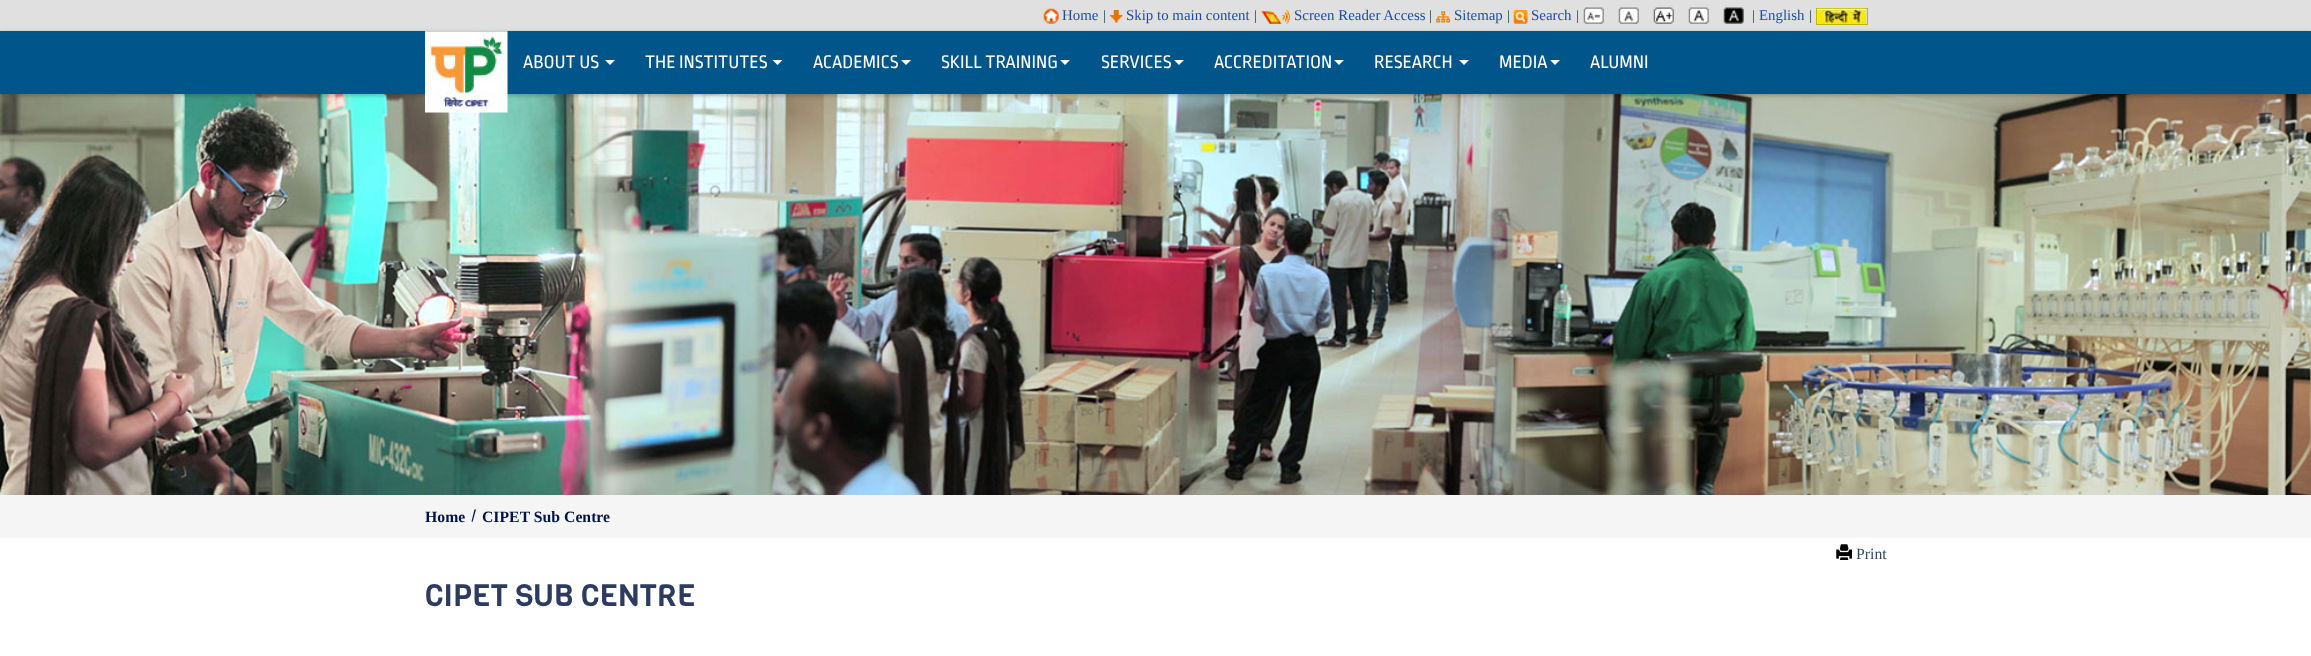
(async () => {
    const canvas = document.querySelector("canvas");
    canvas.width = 2311;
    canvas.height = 656;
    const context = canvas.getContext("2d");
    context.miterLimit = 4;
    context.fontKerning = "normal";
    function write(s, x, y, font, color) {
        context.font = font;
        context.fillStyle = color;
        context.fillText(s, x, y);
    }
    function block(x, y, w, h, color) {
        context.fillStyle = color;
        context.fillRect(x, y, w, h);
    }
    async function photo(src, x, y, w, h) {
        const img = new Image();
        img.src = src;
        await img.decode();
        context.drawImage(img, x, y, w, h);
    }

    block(0, 0, 2311, 656, "rgb(255, 255, 255)");
    block(0, 0, 2311, 31, "rgb(224, 224, 224)");
    await photo("media/1.png", 1043, 8, 16, 16);
    write("Home", 1062, 20, "14.9px Liberation Serif", "rgb(29, 76, 158)");
    write("|", 1103, 20, "14px Liberation Serif", "rgb(3, 54, 82)");
    await photo("media/2.png", 1110, 10, 13, 13);
    write("Skip to main content", 1126, 20, "14.9px Liberation Serif", "rgb(29, 76, 158)");
    write("|", 1254, 20, "14px Liberation Serif", "rgb(3, 54, 82)");
    await photo("media/3.png", 1261, 10, 29, 14);
    write("Screen Reader Access", 1294, 20, "14.9px Liberation Serif", "rgb(29, 76, 158)");
    write("|", 1429, 20, "14px Liberation Serif", "rgb(3, 54, 82)");
    await photo("media/4.png", 1436, 11, 14, 12);
    write("Sitemap", 1454, 20, "14.9px Liberation Serif", "rgb(29, 76, 158)");
    write("|", 1507, 20, "14px Liberation Serif", "rgb(3, 54, 82)");
    await photo("media/5.png", 1513, 10, 15, 14);
    write("Search", 1531, 20, "14.9px Liberation Serif", "rgb(29, 76, 158)");
    write("|", 1576, 20, "14px Liberation Serif", "rgb(3, 54, 82)");
    await photo("media/6.png", 1583, 7, 21, 17);
    await photo("media/7.png", 1618, 7, 21, 17);
    await photo("media/8.png", 1653, 7, 21, 17);
    await photo("media/9.png", 1688, 7, 21, 17);
    await photo("media/10.png", 1723, 7, 21, 17);
    write("|", 1752, 20, "14px Liberation Serif", "rgb(3, 54, 82)");
    write("English", 1759, 20, "14.9px Liberation Serif", "rgb(29, 76, 158)");
    context.strokeStyle = "rgb(191, 180, 0)";
    context.strokeRect(1816.5, 8.5, 51, 16);
    write("|", 1809, 20, "14px Liberation Serif", "rgb(3, 54, 82)");
    await photo("media/11.png", 1817, 8, 50, 16);
    await photo("media/13.png", 0, 94, 2311, 401);
    context.fillStyle = "rgba(0, 0, 0, 0.3)";
    context.filter = "blur(2.5px)";
    context.beginPath();
    context.rect(0, 33, 2311, 62);
    context.fill();
    context.filter = "none";
    block(0, 31, 2311, 63, "rgb(0, 85, 139)");
    await photo("media/12.png", 425, 31, 83, 82);
    write("ABOUT US", 523, 68, "19.25px Ropa Sans", "rgb(255, 255, 255)");
    context.beginPath();
    context.moveTo(605, 60);
    context.lineTo(615, 60);
    context.lineTo(610, 65);
    context.closePath();
    context.fill();
    write("THE INSTITUTES", 645, 68, "19.25px Ropa Sans", "rgb(255, 255, 255)");
    context.beginPath();
    context.moveTo(772.5, 60);
    context.lineTo(782.5, 60);
    context.lineTo(777.5, 65);
    context.closePath();
    context.fill();
    write("ACADEMICS", 813, 68, "19.25px Ropa Sans", "rgb(255, 255, 255)");
    context.beginPath();
    context.moveTo(901, 60);
    context.lineTo(911, 60);
    context.lineTo(906, 65);
    context.closePath();
    context.fill();
    write("SKILL TRAINING", 941, 68, "19.25px Ropa Sans", "rgb(255, 255, 255)");
    context.beginPath();
    context.moveTo(1060, 60);
    context.lineTo(1070, 60);
    context.lineTo(1065, 65);
    context.closePath();
    context.fill();
    write("SERVICES", 1101, 68, "19.25px Ropa Sans", "rgb(255, 255, 255)");
    context.beginPath();
    context.moveTo(1174, 60);
    context.lineTo(1184, 60);
    context.lineTo(1179, 65);
    context.closePath();
    context.fill();
    write("ACCREDITATION", 1214, 68, "19.25px Ropa Sans", "rgb(255, 255, 255)");
    context.beginPath();
    context.moveTo(1334, 60);
    context.lineTo(1344, 60);
    context.lineTo(1339, 65);
    context.closePath();
    context.fill();
    write("RESEARCH", 1374, 68, "19.25px Ropa Sans", "rgb(255, 255, 255)");
    context.beginPath();
    context.moveTo(1459, 60);
    context.lineTo(1469, 60);
    context.lineTo(1464, 65);
    context.closePath();
    context.fill();
    write("MEDIA", 1499, 68, "19.25px Ropa Sans", "rgb(255, 255, 255)");
    context.beginPath();
    context.moveTo(1550, 60);
    context.lineTo(1560, 60);
    context.lineTo(1555, 65);
    context.closePath();
    context.fill();
    write("ALUMNI", 1590, 68, "19.25px Ropa Sans", "rgb(255, 255, 255)");
    block(0, 495, 2311, 43, "rgb(245, 245, 245)");
    write("Home", 425, 522, "bold 15.75px Liberation Serif", "rgb(0, 21, 67)");
    context.fillStyle = "rgb(1, 22, 66)";
    context.beginPath();
    context.moveTo(474.5, 509.5);
    context.lineTo(476, 509.5);
    context.lineTo(472.5, 522);
    context.lineTo(471.5, 521.5);
    context.closePath();
    context.fill();
    write("CIPET Sub Centre", 482, 522, "bold 15.75px Liberation Serif", "rgb(0, 21, 67)");
    await photo("media/14.png", 1836, 544, 16, 16);
    write("Print", 1856, 559, "15.75px Liberation Serif", "rgb(52, 72, 95)");
    write("CIPET SUB CENTRE", 425, 606, "30.6px Viga", "rgb(44, 59, 95)");
})();
